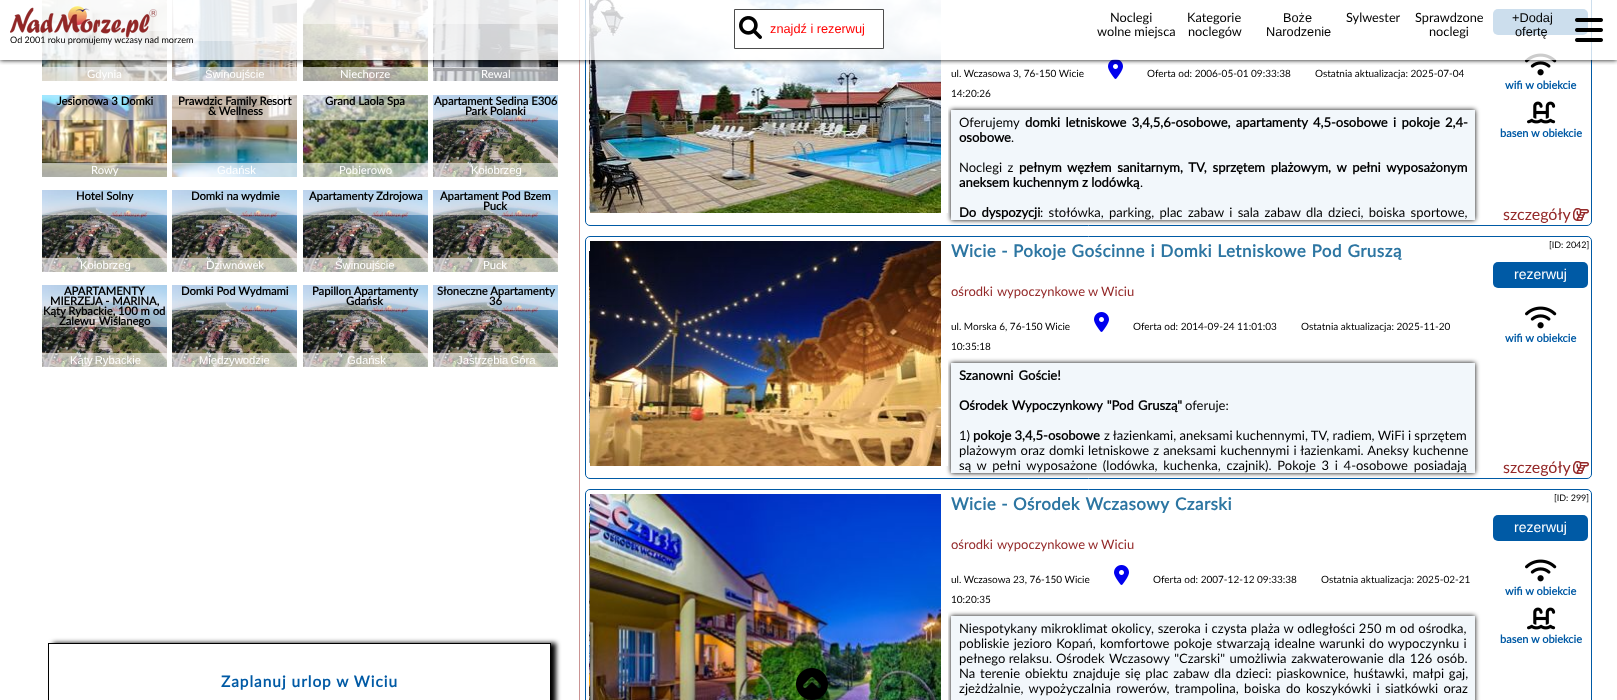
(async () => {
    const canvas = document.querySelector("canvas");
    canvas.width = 1617;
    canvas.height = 700;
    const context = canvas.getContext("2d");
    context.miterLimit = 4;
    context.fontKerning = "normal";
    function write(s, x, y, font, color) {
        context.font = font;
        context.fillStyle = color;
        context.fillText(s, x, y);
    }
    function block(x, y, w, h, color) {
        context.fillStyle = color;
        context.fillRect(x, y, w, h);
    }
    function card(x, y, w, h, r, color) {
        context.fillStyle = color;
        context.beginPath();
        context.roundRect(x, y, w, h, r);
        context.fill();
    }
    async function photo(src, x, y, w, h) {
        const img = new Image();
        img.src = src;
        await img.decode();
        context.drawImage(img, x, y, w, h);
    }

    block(0, 0, 1617, 700, "rgb(255, 255, 255)");
    block(579, 0, 1, 700, "rgb(202, 148, 148)");
    await photo("media/4.png", 42, 0, 125, 81);
    block(42, 0, 125, 31, "rgba(255, 255, 255, 0.45)");
    block(42, 67, 125, 14, "rgba(255, 255, 255, 0.6)");
    await photo("media/5.png", 172, 0, 125, 81);
    block(172, 0, 125, 41, "rgba(255, 255, 255, 0.45)");
    block(172, 67, 125, 14, "rgba(255, 255, 255, 0.6)");
    await photo("media/6.png", 303, 0, 125, 81);
    block(303, 0, 125, 24, "rgba(255, 255, 255, 0.45)");
    block(303, 67, 125, 14, "rgba(255, 255, 255, 0.6)");
    await photo("media/7.png", 433, 0, 125, 81);
    block(433, 0, 125, 24, "rgba(255, 255, 255, 0.45)");
    block(433, 67, 125, 14, "rgba(255, 255, 255, 0.6)");
    context.beginPath();
    context.roundRect(585.5, -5.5, 1006, 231, 4.5);
    context.strokeStyle = "rgb(0, 90, 165)";
    context.stroke();
    await photo("media/12.png", 589, 0, 1, 104);
    await photo("media/14.png", 590, 0, 351, 213);
    await photo("media/15.png", 1108, 59, 15, 20);
    card(1493, 9, 95, 26, 5, "rgb(0, 90, 165)");
    await photo("media/16.png", 1525, 53, 32, 23);
    context.save();
    context.beginPath();
    context.rect(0, 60, 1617, 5);
    context.clip();
    context.fillStyle = "rgb(0, 0, 0)";
    context.filter = "blur(2.5px)";
    context.beginPath();
    context.rect(0, 0, 1617, 60);
    context.fill();
    context.filter = "none";
    context.restore();
    block(42, 0, 1550, 60, "rgba(255, 255, 255, 0.8)");
    await photo("media/1.png", 10, 6, 147, 32);
    context.fillStyle = "rgb(255, 255, 255)";
    context.beginPath();
    context.rect(734.5, 9.5, 149, 39);
    context.fill();
    context.strokeStyle = "rgb(77, 77, 77)";
    context.stroke();
    await photo("media/2.png", 739, 16, 23, 23);
    write("znajdź i rezerwuj", 770, 33, "12.75px Liberation Sans", "rgb(255, 0, 0)");
    write("Noclegi", 1110, 22, "12.75px Lato", "rgb(0, 0, 0)");
    write("wolne miejsca", 1097, 36, "12.75px Lato", "rgb(0, 0, 0)");
    write("Kategorie", 1187, 22, "12.75px Lato", "rgb(0, 0, 0)");
    write("noclegów", 1188, 36, "12.75px Lato", "rgb(0, 0, 0)");
    write("Boże", 1283, 22, "12.75px Liberation Sans", "rgb(0, 0, 0)");
    write("Narodzenie", 1266, 36, "12.75px Liberation Sans", "rgb(0, 0, 0)");
    write("Sylwester", 1346, 22, "12.75px Lato", "rgb(0, 0, 0)");
    write("Sprawdzone", 1415, 22, "12.75px Lato", "rgb(0, 0, 0)");
    write("noclegi", 1429, 36, "12.75px Lato", "rgb(0, 0, 0)");
    write("+Dodaj", 1512, 22, "12.75px Liberation Sans", "rgb(0, 0, 0)");
    write("ofertę", 1515, 36, "12.75px Liberation Sans", "rgb(0, 0, 0)");
    await photo("media/3.png", 1575, 18, 28, 24);
    write("Od 2001 roku promujemy wczasy nad morzem", 10, 43, "9px Lato", "rgb(0, 0, 0)");
    write("Gdynia", 87, 78, "11.25px Lato", "rgb(255, 255, 255)");
    write("Świnoujście", 205, 78, "11.25px Liberation Sans", "rgb(255, 255, 255)");
    write("Niechorze", 340, 78, "11.25px Lato", "rgb(255, 255, 255)");
    write("Rewal", 481, 78, "11.25px Lato", "rgb(255, 255, 255)");
    await photo("media/8.png", 42, 95, 125, 82);
    block(42, 95, 125, 25, "rgba(255, 255, 255, 0.45)");
    write("Jesionowa 3 Domki", 57, 105, "bold 11.25px Lato", "rgb(0, 0, 0)");
    block(42, 163, 125, 14, "rgba(255, 255, 255, 0.6)");
    write("Rowy", 91, 174, "11.25px Lato", "rgb(255, 255, 255)");
    await photo("media/9.png", 172, 95, 125, 82);
    block(172, 95, 125, 25, "rgba(255, 255, 255, 0.45)");
    write("Prawdzic Family Resort", 178, 105, "bold 11.25px Lato", "rgb(0, 0, 0)");
    write("& Wellness", 208, 115, "bold 11.25px Lato", "rgb(0, 0, 0)");
    block(172, 163, 125, 14, "rgba(255, 255, 255, 0.6)");
    write("Gdańsk", 217, 174, "11.25px Liberation Sans", "rgb(255, 255, 255)");
    await photo("media/10.png", 303, 95, 125, 82);
    block(303, 95, 125, 25, "rgba(255, 255, 255, 0.45)");
    write("Grand Laola Spa", 325, 105, "bold 11.25px Lato", "rgb(0, 0, 0)");
    block(303, 163, 125, 14, "rgba(255, 255, 255, 0.6)");
    write("Pobierowo", 339, 174, "11.25px Lato", "rgb(255, 255, 255)");
    await photo("media/11.png", 433, 95, 125, 82);
    block(433, 95, 125, 25, "rgba(255, 255, 255, 0.45)");
    write("Apartament Sedina E306", 434, 105, "bold 11.25px Lato", "rgb(0, 0, 0)");
    write("Park Polanki", 465, 115, "bold 11.25px Lato", "rgb(0, 0, 0)");
    block(433, 163, 125, 14, "rgba(255, 255, 255, 0.6)");
    write("Kołobrzeg", 471, 174, "11.25px Liberation Sans", "rgb(255, 255, 255)");
    await photo("media/11.png", 42, 190, 125, 82);
    block(42, 190, 125, 25, "rgba(255, 255, 255, 0.45)");
    write("Hotel Solny", 76, 200, "bold 11.25px Lato", "rgb(0, 0, 0)");
    block(42, 258, 125, 14, "rgba(255, 255, 255, 0.6)");
    write("Kołobrzeg", 80, 269, "11.25px Liberation Sans", "rgb(255, 255, 255)");
    await photo("media/11.png", 172, 190, 125, 82);
    block(172, 190, 125, 25, "rgba(255, 255, 255, 0.45)");
    write("Domki na wydmie", 191, 200, "bold 11.25px Lato", "rgb(0, 0, 0)");
    block(172, 258, 125, 14, "rgba(255, 255, 255, 0.6)");
    write("Dziwnówek", 206, 269, "11.25px Lato", "rgb(255, 255, 255)");
    await photo("media/11.png", 303, 190, 125, 82);
    block(303, 190, 125, 25, "rgba(255, 255, 255, 0.45)");
    write("Apartamenty Zdrojowa", 309, 200, "bold 11.25px Lato", "rgb(0, 0, 0)");
    block(303, 258, 125, 14, "rgba(255, 255, 255, 0.6)");
    write("Świnoujście", 335, 269, "11.25px Liberation Sans", "rgb(255, 255, 255)");
    await photo("media/11.png", 433, 190, 125, 82);
    block(433, 190, 125, 25, "rgba(255, 255, 255, 0.45)");
    write("Apartament Pod Bzem", 440, 200, "bold 11.25px Lato", "rgb(0, 0, 0)");
    write("Puck", 483, 210, "bold 11.25px Lato", "rgb(0, 0, 0)");
    block(433, 258, 125, 14, "rgba(255, 255, 255, 0.6)");
    write("Puck", 483, 269, "11.25px Lato", "rgb(255, 255, 255)");
    await photo("media/11.png", 42, 285, 125, 82);
    block(42, 285, 125, 42, "rgba(255, 255, 255, 0.45)");
    write("APARTAMENTY", 64, 295, "bold 11.25px Lato", "rgb(0, 0, 0)");
    write("MIERZEJA - MARINA,", 50, 305, "bold 11.25px Lato", "rgb(0, 0, 0)");
    write("Kąty Rybackie, 100 m od", 43, 315, "bold 11.25px Lato", "rgb(0, 0, 0)");
    context.wordSpacing = "1px";
    write("Zalewu Wiślanego", 59, 325, "bold 11.25px Lato", "rgb(0, 0, 0)");
    block(42, 353, 125, 14, "rgba(255, 255, 255, 0.6)");
    context.wordSpacing = "-1px";
    write("Kąty Rybackie", 70, 364, "11.25px Liberation Sans", "rgb(255, 255, 255)");
    await photo("media/11.png", 172, 285, 125, 82);
    block(172, 285, 125, 25, "rgba(255, 255, 255, 0.45)");
    context.wordSpacing = "0px";
    write("Domki Pod Wydmami", 181, 295, "bold 11.25px Lato", "rgb(0, 0, 0)");
    block(172, 353, 125, 14, "rgba(255, 255, 255, 0.6)");
    write("Międzywodzie", 199, 364, "11.25px Liberation Sans", "rgb(255, 255, 255)");
    await photo("media/11.png", 303, 285, 125, 82);
    block(303, 285, 125, 25, "rgba(255, 255, 255, 0.45)");
    write("Papillon Apartamenty", 312, 295, "bold 11.25px Lato", "rgb(0, 0, 0)");
    write("Gdańsk", 346, 305, "bold 11.25px Lato", "rgb(0, 0, 0)");
    block(303, 353, 125, 14, "rgba(255, 255, 255, 0.6)");
    write("Gdańsk", 347, 364, "11.25px Liberation Sans", "rgb(255, 255, 255)");
    await photo("media/11.png", 433, 285, 125, 82);
    block(433, 285, 125, 25, "rgba(255, 255, 255, 0.45)");
    write("Słoneczne Apartamenty", 437, 295, "bold 11.25px Lato", "rgb(0, 0, 0)");
    write("36", 489, 305, "bold 11.25px Lato", "rgb(0, 0, 0)");
    block(433, 353, 125, 14, "rgba(255, 255, 255, 0.6)");
    context.wordSpacing = "-1px";
    write("Jastrzębia Góra", 457, 364, "11.25px Liberation Sans", "rgb(255, 255, 255)");
    context.save();
    context.beginPath();
    context.moveTo(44, 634);
    context.lineTo(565, 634);
    context.lineTo(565, 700);
    context.lineTo(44, 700);
    context.closePath();
    context.moveTo(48, 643);
    context.lineTo(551, 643);
    context.lineTo(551, 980);
    context.lineTo(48, 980);
    context.closePath();
    context.clip("evenodd");
    context.fillStyle = "rgb(0, 0, 0)";
    context.filter = "blur(2.5px)";
    context.beginPath();
    context.rect(53, 643, 503, 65);
    context.fill();
    context.filter = "none";
    context.restore();
    context.strokeStyle = "rgb(0, 0, 0)";
    context.strokeRect(48.5, 643.5, 502, 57);
    context.letterSpacing = "1px";
    context.wordSpacing = "0px";
    write("Zaplanuj urlop w Wiciu", 221, 687, "bold 15.4px Lato", "rgb(0, 90, 165)");
    await photo("media/13.png", 589, 104, 1, 106);
    context.fillStyle = "rgb(0, 0, 0)";
    context.filter = "blur(2.5px)";
    context.beginPath();
    context.rect(951, 110, 524, 110);
    context.fill();
    context.filter = "none";
    block(945, 107, 3, 106, "rgb(255, 255, 255)");
    context.letterSpacing = "0px";
    write("ul. Wczasowa 3, 76-150 Wicie", 951, 77, "10px Lato", "rgb(0, 0, 0)");
    write("Oferta od: 2006-05-01 09:33:38", 1147, 77, "10px Lato", "rgb(0, 0, 0)");
    write("Ostatnia aktualizacja: 2025-07-04", 1315, 77, "10px Lato", "rgb(0, 0, 0)");
    write("14:20:26", 951, 97, "10px Lato", "rgb(0, 0, 0)");
    block(951, 110, 524, 110, "rgb(242, 247, 251)");
    write("Oferujemy", 959, 127, "13px Lato", "rgb(0, 0, 0)");
    context.wordSpacing = "2px";
    write("domki letniskowe 3,4,5,6-osobowe, apartamenty 4,5-osobowe i pokoje 2,4-", 1025, 127, "bold 13px Lato", "rgb(0, 0, 0)");
    context.wordSpacing = "0px";
    write("osobowe", 959, 142, "bold 13px Lato", "rgb(0, 0, 0)");
    write(".", 1011, 142, "13px Lato", "rgb(0, 0, 0)");
    context.wordSpacing = "2px";
    write("Noclegi z", 959, 172, "13px Lato", "rgb(0, 0, 0)");
    context.wordSpacing = "2.4px";
    write("pełnym węzłem sanitarnym, TV, sprzętem plażowym, w pełni wyposażonym", 1019, 172, "bold 13px Lato", "rgb(0, 0, 0)");
    context.wordSpacing = "0px";
    write("aneksem kuchennym z lodówką", 959, 187, "bold 13px Lato", "rgb(0, 0, 0)");
    write(".", 1140, 187, "13px Lato", "rgb(0, 0, 0)");
    context.wordSpacing = "2px";
    write("Do dyspozycji", 959, 217, "bold 13px Lato", "rgb(0, 0, 0)");
    write(": stołówka, parking, plac zabaw i sala zabaw dla dzieci, boiska sportowe,", 1040, 217, "13px Lato", "rgb(0, 0, 0)");
    context.wordSpacing = "0px";
    write("wifi w obiekcie", 1505, 89, "bold 11px Lato", "rgb(0, 90, 165)");
    await photo("media/17.png", 1527, 101, 29, 23);
    write("basen w obiekcie", 1500, 137, "bold 11px Lato", "rgb(0, 90, 165)");
    write("szczegóły", 1503, 220, "16px Lato", "rgb(148, 41, 41)");
    await photo("media/18.png", 1573, 208, 16, 13);
    context.beginPath();
    context.roundRect(585.5, 236.5, 1006, 242, 4.5);
    context.strokeStyle = "rgb(0, 90, 165)";
    context.stroke();
    await photo("media/19.png", 589, 251, 1, 106);
    await photo("media/20.png", 589, 357, 1, 106);
    context.fillStyle = "rgb(0, 0, 0)";
    context.filter = "blur(2.5px)";
    context.beginPath();
    context.rect(951, 363, 524, 110);
    context.fill();
    context.filter = "none";
    block(945, 360, 3, 106, "rgb(255, 255, 255)");
    await photo("media/21.png", 590, 241, 351, 225);
    context.letterSpacing = "0.5px";
    write("Wicie -", 951, 257, "bold 17px Lato", "rgb(45, 118, 162)");
    context.wordSpacing = "0.5px";
    write("Pokoje Gościnne i Domki Letniskowe Pod Gruszą", 1013, 257, "bold 17px Lato", "rgb(45, 118, 162)");
    context.letterSpacing = "0px";
    context.wordSpacing = "1px";
    write("ośrodki wypoczynkowe", 951, 296, "13px Lato", "rgb(148, 41, 41)");
    context.wordSpacing = "0px";
    write("w Wiciu", 1088, 296, "13px Lato", "rgb(148, 41, 41)");
    write("ul. Morska 6, 76-150 Wicie", 951, 330, "10px Lato", "rgb(0, 0, 0)");
    await photo("media/15.png", 1094, 312, 15, 20);
    write("Oferta od: 2014-09-24 11:01:03", 1133, 330, "10px Lato", "rgb(0, 0, 0)");
    write("Ostatnia aktualizacja: 2025-11-20", 1301, 330, "10px Lato", "rgb(0, 0, 0)");
    write("10:35:18", 951, 350, "10px Lato", "rgb(0, 0, 0)");
    block(951, 363, 524, 110, "rgb(242, 247, 251)");
    context.wordSpacing = "2px";
    write("Szanowni Goście!", 959, 380, "bold 13px Lato", "rgb(0, 0, 0)");
    context.wordSpacing = "1px";
    write("Ośrodek Wypoczynkowy \"Pod Gruszą\"", 959, 410, "bold 13px Lato", "rgb(0, 0, 0)");
    context.wordSpacing = "0px";
    write("oferuje:", 1185, 410, "13px Lato", "rgb(0, 0, 0)");
    write("1)", 959, 440, "13px Lato", "rgb(0, 0, 0)");
    write("pokoje 3,4,5-osobowe", 973, 440, "bold 13px Lato", "rgb(0, 0, 0)");
    write("z łazienkami, aneksami kuchennymi, TV, radiem, WiFi i sprzętem", 1104, 440, "13px Lato", "rgb(0, 0, 0)");
    context.wordSpacing = "0.75px";
    write("plażowym oraz domki letniskowe z aneksami kuchennymi i łazienkami. Aneksy kuchenne", 959, 455, "13px Lato", "rgb(0, 0, 0)");
    context.wordSpacing = "2.4px";
    write("są w pełni wyposażone (lodówka, kuchenka, czajnik). Pokoje 3 i 4-osobowe posiadają", 959, 470, "13px Lato", "rgb(0, 0, 0)");
    context.wordSpacing = "0px";
    write("[ID: 2042]", 1549, 248, "9px Lato", "rgb(0, 0, 0)");
    card(1493, 262, 95, 26, 5, "rgb(0, 90, 165)");
    write("rezerwuj", 1514, 279, "14px Liberation Sans", "rgb(255, 255, 255)");
    await photo("media/16.png", 1525, 306, 32, 23);
    write("wifi w obiekcie", 1505, 342, "bold 11px Lato", "rgb(0, 90, 165)");
    write("szczegóły", 1503, 473, "16px Lato", "rgb(148, 41, 41)");
    await photo("media/18.png", 1573, 461, 16, 13);
    context.beginPath();
    context.roundRect(585.5, 489.5, 1006, 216, 4.5);
    context.stroke();
    await photo("media/22.png", 589, 504, 1, 106);
    await photo("media/23.png", 589, 610, 1, 90);
    context.fillStyle = "rgb(0, 0, 0)";
    context.filter = "blur(2.5px)";
    context.beginPath();
    context.rect(951, 616, 524, 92);
    context.fill();
    context.filter = "none";
    block(945, 613, 3, 87, "rgb(255, 255, 255)");
    await photo("media/24.png", 590, 494, 351, 206);
    context.letterSpacing = "0.5px";
    write("Wicie -", 951, 510, "bold 17px Lato", "rgb(45, 118, 162)");
    context.wordSpacing = "1px";
    write("Ośrodek Wczasowy Czarski", 1013, 510, "bold 17px Lato", "rgb(45, 118, 162)");
    context.letterSpacing = "0px";
    write("ośrodki wypoczynkowe", 951, 549, "13px Lato", "rgb(148, 41, 41)");
    context.wordSpacing = "0px";
    write("w Wiciu", 1088, 549, "13px Lato", "rgb(148, 41, 41)");
    write("ul. Wczasowa 23, 76-150 Wicie", 951, 583, "10px Lato", "rgb(0, 0, 0)");
    await photo("media/15.png", 1114, 565, 15, 20);
    write("Oferta od: 2007-12-12 09:33:38", 1153, 583, "10px Lato", "rgb(0, 0, 0)");
    write("Ostatnia aktualizacja: 2025-02-21", 1321, 583, "10px Lato", "rgb(0, 0, 0)");
    write("10:20:35", 951, 603, "10px Lato", "rgb(0, 0, 0)");
    block(951, 616, 524, 84, "rgb(242, 247, 251)");
    context.wordSpacing = "0.5px";
    write("Niespotykany mikroklimat okolicy, szeroka i czysta plaża w odległości 250 m od ośrodka,", 959, 633, "13px Lato", "rgb(0, 0, 0)");
    context.wordSpacing = "1px";
    write("pobliskie jezioro Kopań, komfortowe pokoje stwarzają idealne warunki do wypoczynku i", 959, 648, "13px Lato", "rgb(0, 0, 0)");
    context.wordSpacing = "0px";
    write("pełnego relaksu.", 959, 663, "13px Lato", "rgb(0, 0, 0)");
    context.wordSpacing = "1.25px";
    write("Ośrodek Wczasowy \"Czarski\" umożliwia zakwaterowanie dla 126 osób.", 1056, 663, "13px Lato", "rgb(0, 0, 0)");
    context.wordSpacing = "1.5px";
    write("Na terenie obiektu znajduje się plac zabaw dla dzieci: piaskownice, huśtawki, małpi gaj,", 959, 678, "13px Lato", "rgb(0, 0, 0)");
    context.wordSpacing = "2px";
    write("zjeżdżalnie, wypożyczalnia rowerów, trampolina, boiska do koszykówki i siatkówki oraz", 959, 693, "13px Lato", "rgb(0, 0, 0)");
    context.wordSpacing = "0px";
    write("[ID: 299]", 1554, 501, "9px Lato", "rgb(0, 0, 0)");
    card(1493, 515, 95, 26, 5, "rgb(0, 90, 165)");
    write("rezerwuj", 1514, 532, "14px Liberation Sans", "rgb(255, 255, 255)");
    await photo("media/16.png", 1525, 559, 32, 23);
    write("wifi w obiekcie", 1505, 595, "bold 11px Lato", "rgb(0, 90, 165)");
    await photo("media/17.png", 1527, 607, 29, 23);
    write("basen w obiekcie", 1500, 643, "bold 11px Lato", "rgb(0, 90, 165)");
    await photo("media/25.png", 796, 668, 32, 32);
})();
